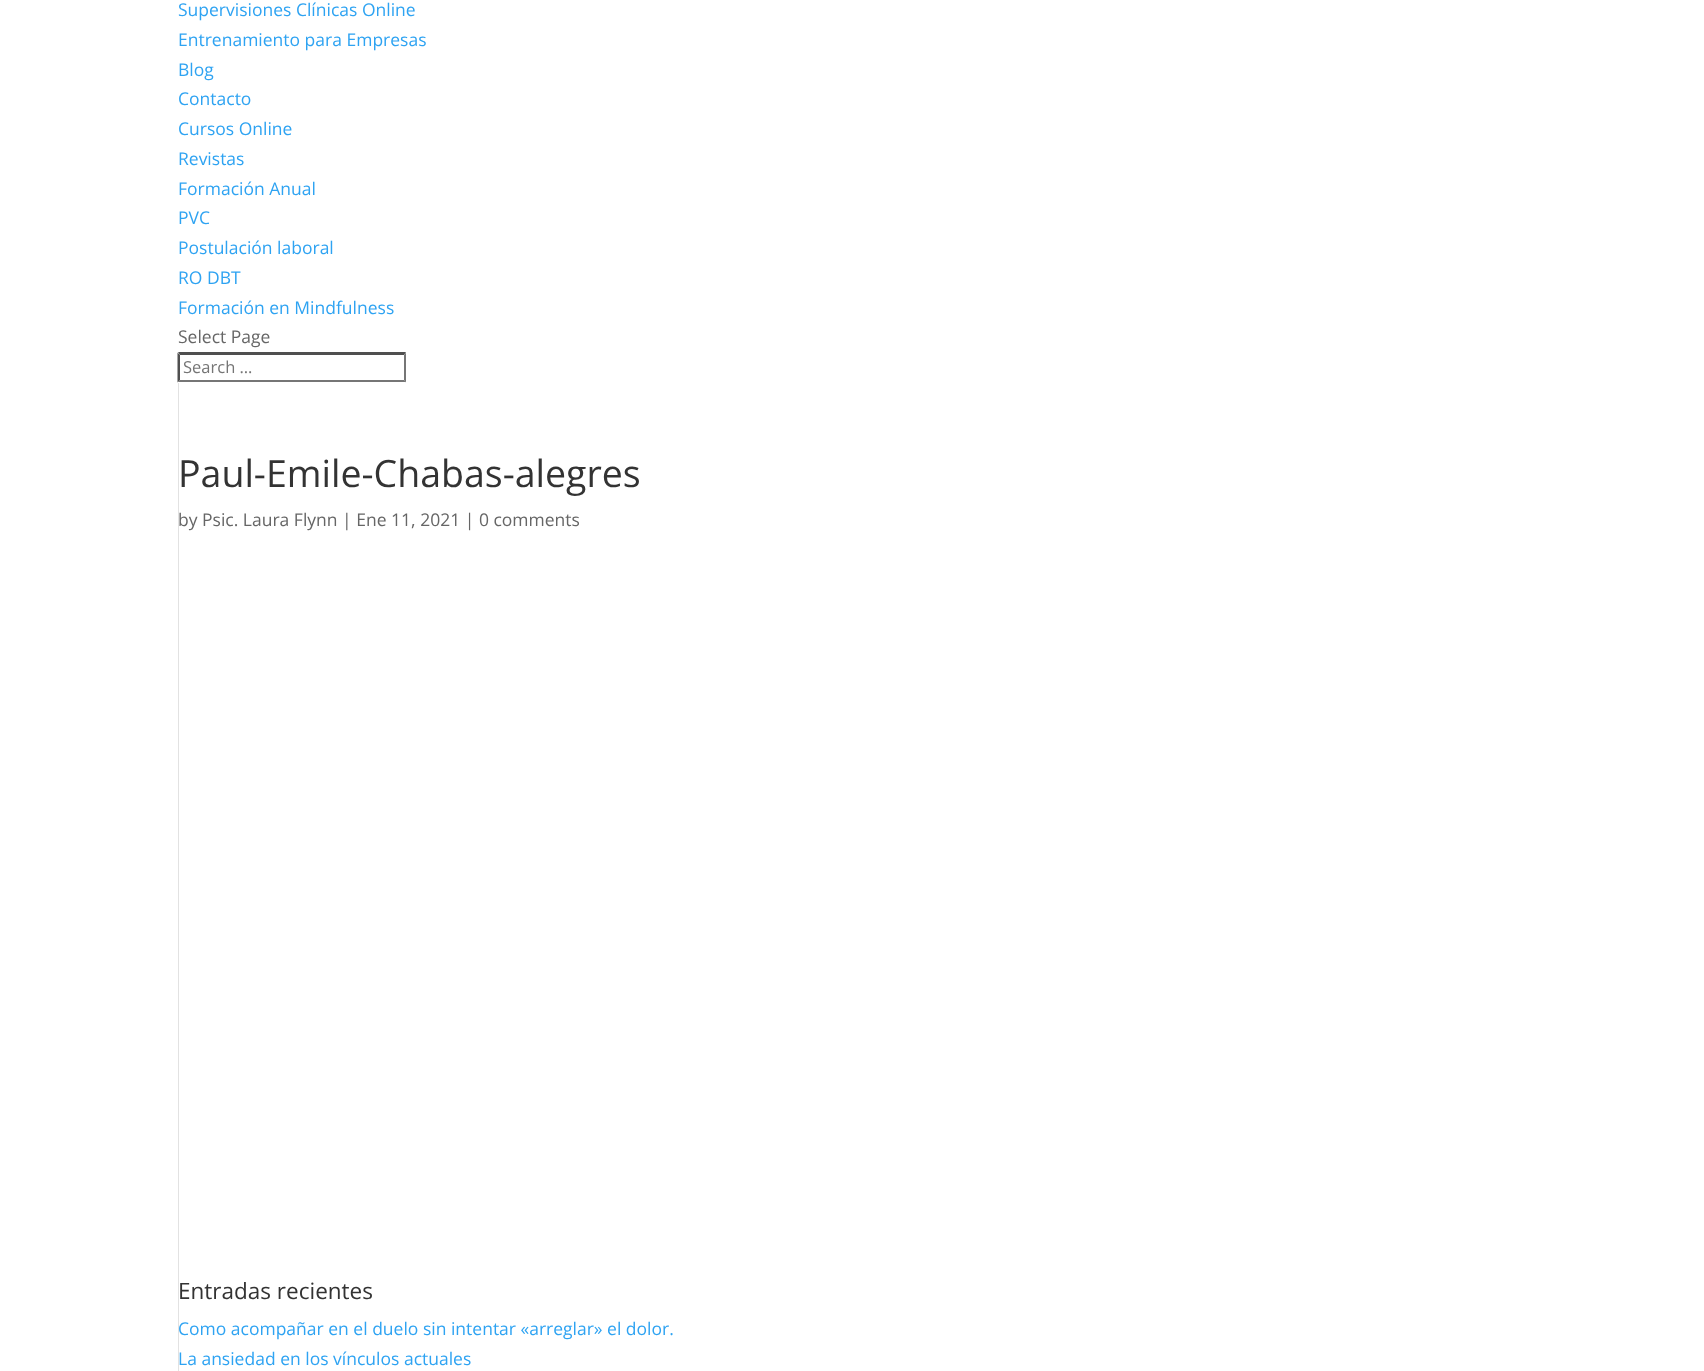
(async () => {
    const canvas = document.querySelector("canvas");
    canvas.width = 1704;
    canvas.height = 1371;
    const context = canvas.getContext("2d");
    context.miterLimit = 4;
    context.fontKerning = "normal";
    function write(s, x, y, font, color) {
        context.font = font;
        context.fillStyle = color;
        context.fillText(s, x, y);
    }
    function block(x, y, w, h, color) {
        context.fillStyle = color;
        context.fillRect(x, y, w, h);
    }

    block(0, 0, 1704, 1371, "rgb(255, 255, 255)");
    write("Supervisiones Clínicas Online", 178, 16, "17.5px Open Sans", "rgb(46, 163, 242)");
    write("Entrenamiento para Empresas", 178, 46, "17.5px Open Sans", "rgb(46, 163, 242)");
    write("Blog", 178, 76, "17.5px Open Sans", "rgb(46, 163, 242)");
    write("Contacto", 178, 105, "17.5px Open Sans", "rgb(46, 163, 242)");
    write("Cursos Online", 178, 135, "17.5px Open Sans", "rgb(46, 163, 242)");
    write("Revistas", 178, 165, "17.5px Open Sans", "rgb(46, 163, 242)");
    write("Formación Anual", 178, 195, "17.5px Open Sans", "rgb(46, 163, 242)");
    write("PVC", 178, 224, "17.5px Open Sans", "rgb(46, 163, 242)");
    write("Postulación laboral", 178, 254, "17.5px Open Sans", "rgb(46, 163, 242)");
    write("RO DBT", 178, 284, "17.5px Open Sans", "rgb(46, 163, 242)");
    write("Formación en Mindfulness", 178, 314, "17.5px Open Sans", "rgb(46, 163, 242)");
    write("Select Page", 178, 343, "17.5px Open Sans", "rgb(102, 102, 102)");
    context.fillStyle = "rgb(79, 79, 79)";
    context.beginPath();
    context.moveTo(178, 352);
    context.lineTo(406, 352);
    context.lineTo(404, 355);
    context.lineTo(180, 355);
    context.closePath();
    context.fill();
    context.fillStyle = "rgb(118, 118, 118)";
    context.beginPath();
    context.moveTo(406, 352.5);
    context.lineTo(406, 382.5);
    context.lineTo(404, 380);
    context.lineTo(404, 355);
    context.closePath();
    context.fill();
    context.beginPath();
    context.moveTo(406, 382);
    context.lineTo(178, 382);
    context.lineTo(180, 380);
    context.lineTo(404, 380);
    context.closePath();
    context.fill();
    context.fillStyle = "rgb(79, 79, 79)";
    context.beginPath();
    context.moveTo(177.5, 382.5);
    context.lineTo(177.5, 352.5);
    context.lineTo(180, 355);
    context.lineTo(180, 380);
    context.closePath();
    context.fill();
    write("Search …", 183, 373, "16.5px Open Sans", "rgb(117, 117, 117)");
    write("by Psic. Laura Flynn | Ene 11, 2021 | 0 comments", 178, 526, "17.5px Open Sans", "rgb(102, 102, 102)");
    write("Como acompañar en el duelo sin intentar «arreglar» el dolor.", 178, 1335, "17.5px Open Sans", "rgb(46, 163, 242)");
    block(178, 383, 1, 988, "rgb(226, 226, 226)");
    write("Paul-Emile-Chabas-alegres", 178, 487, "37.5px Open Sans", "rgb(51, 51, 51)");
    write("Entradas recientes", 178, 1299, "22.5px Open Sans", "rgb(51, 51, 51)");
    write("La ansiedad en los vínculos actuales", 178, 1365, "17.5px Open Sans", "rgb(46, 163, 242)");
})();
